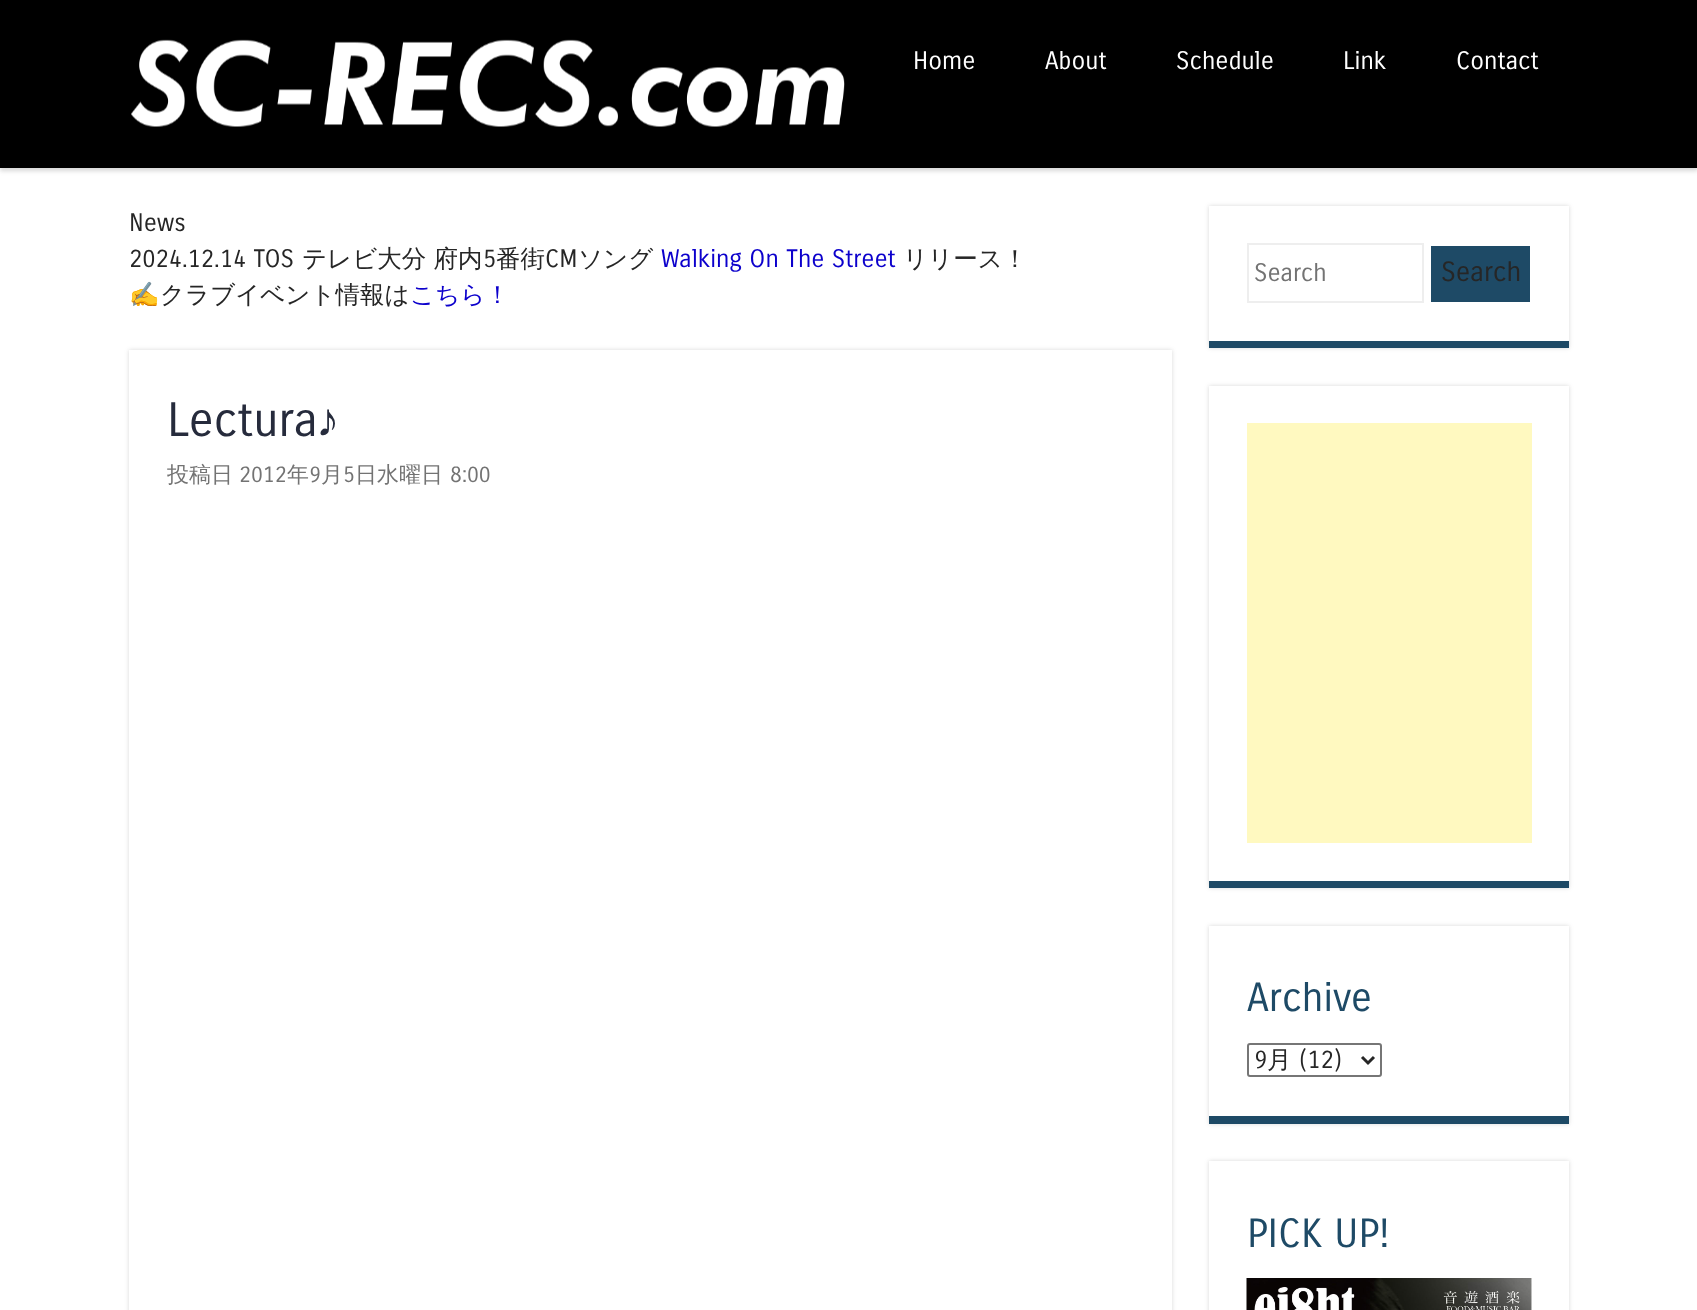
(async () => {
    const canvas = document.querySelector("canvas");
    canvas.width = 1697;
    canvas.height = 1310;
    const context = canvas.getContext("2d");
    context.miterLimit = 4;
    context.fontKerning = "normal";
    function write(s, x, y, font, color) {
        context.font = font;
        context.fillStyle = color;
        context.fillText(s, x, y);
    }
    function block(x, y, w, h, color) {
        context.fillStyle = color;
        context.fillRect(x, y, w, h);
    }
    async function photo(src, x, y, w, h) {
        const img = new Image();
        img.src = src;
        await img.decode();
        context.drawImage(img, x, y, w, h);
    }

    block(0, 0, 1697, 1310, "rgb(255, 255, 255)");
    context.fillStyle = "rgba(100, 100, 100, 0.25)";
    context.filter = "blur(2px)";
    context.beginPath();
    context.rect(0, 3, 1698, 168);
    context.fill();
    context.filter = "none";
    block(0, 0, 1697, 168, "rgb(0, 0, 0)");
    await photo("media/1.png", 131, 39, 714, 88);
    write("Home", 913, 69, "24.5px Carrois Gothic", "rgb(255, 255, 255)");
    write("About", 1045, 69, "24.5px Carrois Gothic", "rgb(255, 255, 255)");
    write("Schedule", 1176, 69, "24.5px Carrois Gothic", "rgb(255, 255, 255)");
    write("Link", 1343, 69, "24.5px Carrois Gothic", "rgb(255, 255, 255)");
    write("Contact", 1456, 69, "24.5px Carrois Gothic", "rgb(255, 255, 255)");
    write("News", 129, 231, "24.5px Carrois Gothic", "rgb(38, 38, 38)");
    write("2024.12.14 TOS", 129, 267, "24.5px Carrois Gothic", "rgb(38, 38, 38)");
    write("テレビ大分 府内", 302, 267, "500 24.5px WenQuanYi Zen Hei", "rgb(38, 38, 38)");
    write("5", 483, 267, "24.5px Carrois Gothic", "rgb(38, 38, 38)");
    write("番街", 496, 267, "500 24.5px WenQuanYi Zen Hei", "rgb(38, 38, 38)");
    write("CM", 545, 267, "24.5px Carrois Gothic", "rgb(38, 38, 38)");
    write("ソング", 578, 267, "500 24.5px WenQuanYi Zen Hei", "rgb(38, 38, 38)");
    write("Walking On The Street", 661, 267, "24.5px Carrois Gothic", "rgb(12, 0, 204)");
    write("リリース！", 903, 267, "500 24.5px WenQuanYi Zen Hei", "rgb(38, 38, 38)");
    write("✍️", 129, 303, "24.5px Noto Color Emoji", "rgb(38, 38, 38)");
    write("クラブイベント情報は", 160, 303, "500 24.5px WenQuanYi Zen Hei", "rgb(38, 38, 38)");
    write("こちら！", 410, 303, "500 24.5px WenQuanYi Zen Hei", "rgb(12, 0, 204)");
    context.fillStyle = "rgba(100, 100, 100, 0.25)";
    context.filter = "blur(2px)";
    context.beginPath();
    context.rect(129, 350, 1043, 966);
    context.fill();
    context.filter = "none";
    block(129, 350, 1043, 960, "rgb(255, 255, 255)");
    write("Lectura", 167, 436, "47px Carrois Gothic", "rgb(38, 43, 60)");
    write("♪", 316, 436, "47px Liberation Sans", "rgb(38, 43, 60)");
    write("投稿日", 167, 482, "500 22px WenQuanYi Zen Hei", "rgb(115, 115, 115)");
    write("2012", 239, 482, "22px Carrois Gothic", "rgb(115, 115, 115)");
    write("年", 287, 482, "500 22px WenQuanYi Zen Hei", "rgb(115, 115, 115)");
    write("9", 309, 482, "22px Carrois Gothic", "rgb(115, 115, 115)");
    write("月", 321, 482, "500 22px WenQuanYi Zen Hei", "rgb(115, 115, 115)");
    write("5", 343, 482, "22px Carrois Gothic", "rgb(115, 115, 115)");
    write("日水曜日", 355, 482, "500 22px WenQuanYi Zen Hei", "rgb(115, 115, 115)");
    write("8:00", 450, 482, "22px Carrois Gothic", "rgb(115, 115, 115)");
    context.save();
    context.beginPath();
    context.moveTo(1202, 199);
    context.lineTo(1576, 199);
    context.lineTo(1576, 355);
    context.lineTo(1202, 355);
    context.closePath();
    context.moveTo(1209, 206);
    context.lineTo(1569, 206);
    context.lineTo(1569, 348);
    context.lineTo(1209, 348);
    context.closePath();
    context.clip("evenodd");
    context.fillStyle = "rgba(100, 100, 100, 0.25)";
    context.filter = "blur(2px)";
    context.beginPath();
    context.rect(1209, 206, 360, 142);
    context.fill();
    context.filter = "none";
    context.restore();
    block(1209, 341, 360, 7, "rgb(30, 74, 102)");
    context.strokeStyle = "rgb(238, 238, 238)";
    context.lineWidth = 2;
    context.strokeRect(1248, 244, 175, 58);
    write("Search", 1254, 281, "24.5px Carrois Gothic", "rgb(115, 115, 115)");
    block(1431, 246, 99, 56, "rgb(30, 74, 102)");
    write("Search", 1441, 281, "27px Carrois Gothic", "rgb(38, 38, 38)");
    context.save();
    context.beginPath();
    context.moveTo(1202, 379);
    context.lineTo(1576, 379);
    context.lineTo(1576, 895);
    context.lineTo(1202, 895);
    context.closePath();
    context.moveTo(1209, 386);
    context.lineTo(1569, 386);
    context.lineTo(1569, 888);
    context.lineTo(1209, 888);
    context.closePath();
    context.clip("evenodd");
    context.fillStyle = "rgba(100, 100, 100, 0.25)";
    context.filter = "blur(2px)";
    context.beginPath();
    context.rect(1209, 386, 360, 502);
    context.fill();
    context.filter = "none";
    context.restore();
    block(1209, 881, 360, 7, "rgb(30, 74, 102)");
    block(1247, 423, 285, 420, "rgb(255, 249, 192)");
    context.fillStyle = "rgba(100, 100, 100, 0.25)";
    context.filter = "blur(2px)";
    context.beginPath();
    context.rect(1209, 926, 360, 198);
    context.fill();
    context.filter = "none";
    block(1209, 926, 360, 190, "rgb(255, 255, 255)");
    block(1209, 1116, 360, 8, "rgb(30, 74, 102)");
    write("Archive", 1247, 1011, "39.5px Carrois Gothic", "rgb(30, 74, 102)");
    context.beginPath();
    context.roundRect(1248, 1044, 133, 32, 2);
    context.strokeStyle = "rgb(118, 118, 118)";
    context.stroke();
    context.beginPath();
    context.moveTo(1362, 1057);
    context.lineTo(1368, 1063);
    context.lineTo(1374, 1057);
    context.strokeStyle = "rgb(38, 38, 38)";
    context.lineWidth = 3;
    context.stroke();
    write("9", 1254, 1068, "24.5px Carrois Gothic", "rgb(38, 38, 38)");
    write("月", 1267, 1068, "500 24.5px WenQuanYi Zen Hei", "rgb(38, 38, 38)");
    write("(12)", 1299, 1068, "24.5px Carrois Gothic", "rgb(38, 38, 38)");
    context.save();
    context.beginPath();
    context.moveTo(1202, 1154);
    context.lineTo(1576, 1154);
    context.lineTo(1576, 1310);
    context.lineTo(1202, 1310);
    context.closePath();
    context.moveTo(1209, 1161);
    context.lineTo(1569, 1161);
    context.lineTo(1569, 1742);
    context.lineTo(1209, 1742);
    context.closePath();
    context.clip("evenodd");
    context.fillStyle = "rgba(100, 100, 100, 0.25)";
    context.filter = "blur(2px)";
    context.beginPath();
    context.rect(1209, 1161, 360, 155);
    context.fill();
    context.filter = "none";
    context.restore();
    write("PICK UP!", 1247, 1247, "39.5px Carrois Gothic", "rgb(30, 74, 102)");
    await photo("media/2.png", 1246, 1278, 286, 32);
})();
